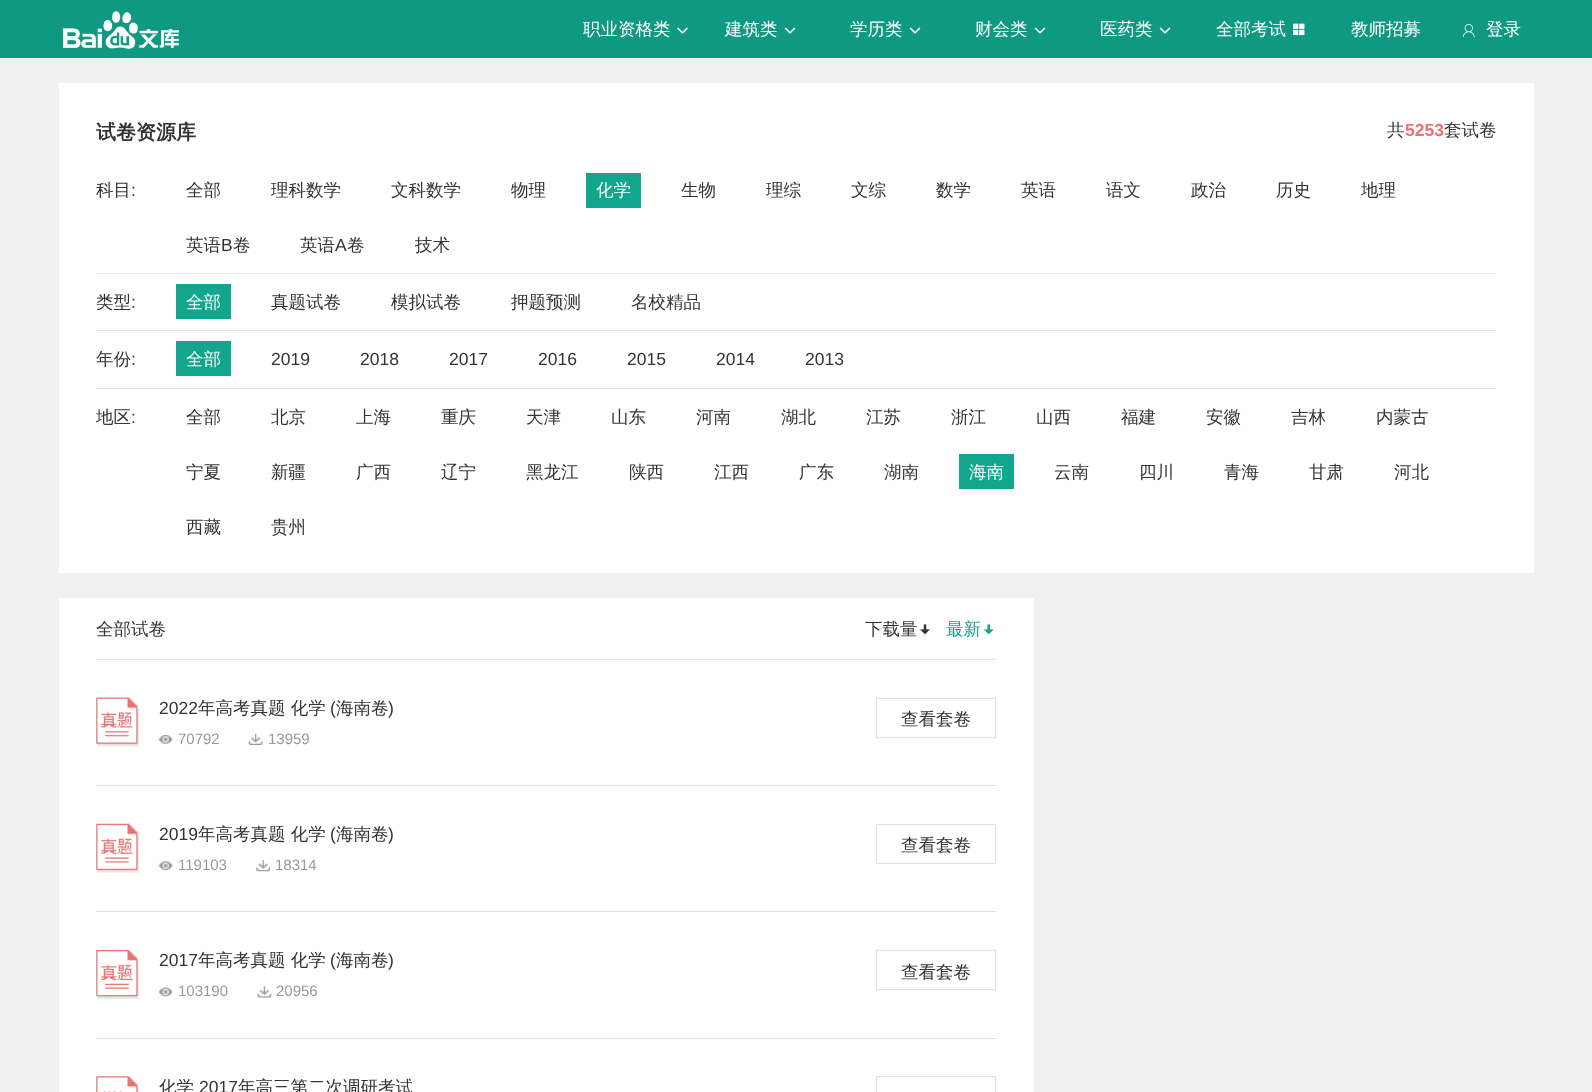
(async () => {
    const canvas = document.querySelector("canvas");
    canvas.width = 1592;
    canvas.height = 1092;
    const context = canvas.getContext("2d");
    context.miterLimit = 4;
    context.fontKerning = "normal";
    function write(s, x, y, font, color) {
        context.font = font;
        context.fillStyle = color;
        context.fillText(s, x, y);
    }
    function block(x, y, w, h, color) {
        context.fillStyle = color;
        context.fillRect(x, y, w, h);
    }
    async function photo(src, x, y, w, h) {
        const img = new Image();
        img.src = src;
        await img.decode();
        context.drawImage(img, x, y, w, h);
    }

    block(0, 0, 1592, 1092, "rgb(240, 240, 240)");
    block(0, 0, 1592, 58, "rgb(15, 153, 130)");
    await photo("media/1.png", 63, 11, 116, 38);
    write("职业资格类", 583, 35, "500 17.5px WenQuanYi Zen Hei", "rgb(255, 255, 255)");
    await photo("media/2.png", 677, 27, 11, 7);
    write("建筑类", 725, 35, "500 17.5px WenQuanYi Zen Hei", "rgb(255, 255, 255)");
    await photo("media/3.png", 784, 27, 12, 7);
    write("学历类", 850, 35, "500 17.5px WenQuanYi Zen Hei", "rgb(255, 255, 255)");
    await photo("media/3.png", 909, 27, 12, 7);
    write("财会类", 975, 35, "500 17.5px WenQuanYi Zen Hei", "rgb(255, 255, 255)");
    await photo("media/3.png", 1034, 27, 12, 7);
    write("医药类", 1100, 35, "500 17.5px WenQuanYi Zen Hei", "rgb(255, 255, 255)");
    await photo("media/3.png", 1159, 27, 12, 7);
    write("全部考试", 1216, 35, "500 17.5px WenQuanYi Zen Hei", "rgb(255, 255, 255)");
    await photo("media/4.png", 1293, 23, 12, 13);
    write("教师招募", 1351, 35, "500 17.5px WenQuanYi Zen Hei", "rgb(255, 255, 255)");
    await photo("media/5.png", 1462, 24, 13, 14);
    write("登录", 1486, 35, "500 17.5px WenQuanYi Zen Hei", "rgb(255, 255, 255)");
    block(59, 83, 1475, 490, "rgb(255, 255, 255)");
    write("试卷资源库", 96, 139, "bold 20px WenQuanYi Zen Hei", "rgb(51, 51, 51)");
    write("共", 1387, 136, "500 17.5px WenQuanYi Zen Hei", "rgb(51, 51, 51)");
    write("5253", 1405, 136, "bold 17.5px Liberation Sans", "rgb(229, 115, 115)");
    write("套试卷", 1444, 136, "500 17.5px WenQuanYi Zen Hei", "rgb(51, 51, 51)");
    block(96, 273, 1400, 1, "rgb(229, 229, 229)");
    write("科目", 96, 196, "500 17.5px WenQuanYi Zen Hei", "rgb(51, 51, 51)");
    write(":", 131, 196, "17.5px Liberation Sans", "rgb(51, 51, 51)");
    write("全部", 186, 196, "500 17.5px WenQuanYi Zen Hei", "rgb(51, 51, 51)");
    write("理科数学", 271, 196, "500 17.5px WenQuanYi Zen Hei", "rgb(51, 51, 51)");
    write("文科数学", 391, 196, "500 17.5px WenQuanYi Zen Hei", "rgb(51, 51, 51)");
    write("物理", 511, 196, "500 17.5px WenQuanYi Zen Hei", "rgb(51, 51, 51)");
    block(586, 173, 55, 35, "rgb(17, 166, 141)");
    write("化学", 596, 196, "500 17.5px WenQuanYi Zen Hei", "rgb(255, 255, 255)");
    write("生物", 681, 196, "500 17.5px WenQuanYi Zen Hei", "rgb(51, 51, 51)");
    write("理综", 766, 196, "500 17.5px WenQuanYi Zen Hei", "rgb(51, 51, 51)");
    write("文综", 851, 196, "500 17.5px WenQuanYi Zen Hei", "rgb(51, 51, 51)");
    write("数学", 936, 196, "500 17.5px WenQuanYi Zen Hei", "rgb(51, 51, 51)");
    write("英语", 1021, 196, "500 17.5px WenQuanYi Zen Hei", "rgb(51, 51, 51)");
    write("语文", 1106, 196, "500 17.5px WenQuanYi Zen Hei", "rgb(51, 51, 51)");
    write("政治", 1191, 196, "500 17.5px WenQuanYi Zen Hei", "rgb(51, 51, 51)");
    write("历史", 1276, 196, "500 17.5px WenQuanYi Zen Hei", "rgb(51, 51, 51)");
    write("地理", 1361, 196, "500 17.5px WenQuanYi Zen Hei", "rgb(51, 51, 51)");
    write("英语", 186, 251, "500 17.5px WenQuanYi Zen Hei", "rgb(51, 51, 51)");
    write("B", 221, 251, "17.5px Liberation Sans", "rgb(51, 51, 51)");
    write("卷", 233, 251, "500 17.5px WenQuanYi Zen Hei", "rgb(51, 51, 51)");
    write("英语", 300, 251, "500 17.5px WenQuanYi Zen Hei", "rgb(51, 51, 51)");
    write("A", 335, 251, "17.5px Liberation Sans", "rgb(51, 51, 51)");
    write("卷", 347, 251, "500 17.5px WenQuanYi Zen Hei", "rgb(51, 51, 51)");
    write("技术", 415, 251, "500 17.5px WenQuanYi Zen Hei", "rgb(51, 51, 51)");
    block(96, 330, 1400, 1, "rgb(229, 229, 229)");
    write("类型", 96, 308, "500 17.5px WenQuanYi Zen Hei", "rgb(51, 51, 51)");
    write(":", 131, 308, "17.5px Liberation Sans", "rgb(51, 51, 51)");
    block(176, 284, 55, 35, "rgb(17, 166, 141)");
    write("全部", 186, 308, "500 17.5px WenQuanYi Zen Hei", "rgb(255, 255, 255)");
    write("真题试卷", 271, 308, "500 17.5px WenQuanYi Zen Hei", "rgb(51, 51, 51)");
    write("模拟试卷", 391, 308, "500 17.5px WenQuanYi Zen Hei", "rgb(51, 51, 51)");
    write("押题预测", 511, 308, "500 17.5px WenQuanYi Zen Hei", "rgb(51, 51, 51)");
    write("名校精品", 631, 308, "500 17.5px WenQuanYi Zen Hei", "rgb(51, 51, 51)");
    block(96, 388, 1400, 1, "rgb(229, 229, 229)");
    write("年份", 96, 365, "500 17.5px WenQuanYi Zen Hei", "rgb(51, 51, 51)");
    write(":", 131, 365, "17.5px Liberation Sans", "rgb(51, 51, 51)");
    block(176, 341, 55, 35, "rgb(17, 166, 141)");
    write("全部", 186, 365, "500 17.5px WenQuanYi Zen Hei", "rgb(255, 255, 255)");
    write("2019", 271, 365, "17.5px Liberation Sans", "rgb(51, 51, 51)");
    write("2018", 360, 365, "17.5px Liberation Sans", "rgb(51, 51, 51)");
    write("2017", 449, 365, "17.5px Liberation Sans", "rgb(51, 51, 51)");
    write("2016", 538, 365, "17.5px Liberation Sans", "rgb(51, 51, 51)");
    write("2015", 627, 365, "17.5px Liberation Sans", "rgb(51, 51, 51)");
    write("2014", 716, 365, "17.5px Liberation Sans", "rgb(51, 51, 51)");
    write("2013", 805, 365, "17.5px Liberation Sans", "rgb(51, 51, 51)");
    write("地区", 96, 423, "500 17.5px WenQuanYi Zen Hei", "rgb(51, 51, 51)");
    write(":", 131, 423, "17.5px Liberation Sans", "rgb(51, 51, 51)");
    write("全部", 186, 423, "500 17.5px WenQuanYi Zen Hei", "rgb(51, 51, 51)");
    write("北京", 271, 423, "500 17.5px WenQuanYi Zen Hei", "rgb(51, 51, 51)");
    write("上海", 356, 423, "500 17.5px WenQuanYi Zen Hei", "rgb(51, 51, 51)");
    write("重庆", 441, 423, "500 17.5px WenQuanYi Zen Hei", "rgb(51, 51, 51)");
    write("天津", 526, 423, "500 17.5px WenQuanYi Zen Hei", "rgb(51, 51, 51)");
    write("山东", 611, 423, "500 17.5px WenQuanYi Zen Hei", "rgb(51, 51, 51)");
    write("河南", 696, 423, "500 17.5px WenQuanYi Zen Hei", "rgb(51, 51, 51)");
    write("湖北", 781, 423, "500 17.5px WenQuanYi Zen Hei", "rgb(51, 51, 51)");
    write("江苏", 866, 423, "500 17.5px WenQuanYi Zen Hei", "rgb(51, 51, 51)");
    write("浙江", 951, 423, "500 17.5px WenQuanYi Zen Hei", "rgb(51, 51, 51)");
    write("山西", 1036, 423, "500 17.5px WenQuanYi Zen Hei", "rgb(51, 51, 51)");
    write("福建", 1121, 423, "500 17.5px WenQuanYi Zen Hei", "rgb(51, 51, 51)");
    write("安徽", 1206, 423, "500 17.5px WenQuanYi Zen Hei", "rgb(51, 51, 51)");
    write("吉林", 1291, 423, "500 17.5px WenQuanYi Zen Hei", "rgb(51, 51, 51)");
    write("内蒙古", 1376, 423, "500 17.5px WenQuanYi Zen Hei", "rgb(51, 51, 51)");
    write("宁夏", 186, 478, "500 17.5px WenQuanYi Zen Hei", "rgb(51, 51, 51)");
    write("新疆", 271, 478, "500 17.5px WenQuanYi Zen Hei", "rgb(51, 51, 51)");
    write("广西", 356, 478, "500 17.5px WenQuanYi Zen Hei", "rgb(51, 51, 51)");
    write("辽宁", 441, 478, "500 17.5px WenQuanYi Zen Hei", "rgb(51, 51, 51)");
    write("黑龙江", 526, 478, "500 17.5px WenQuanYi Zen Hei", "rgb(51, 51, 51)");
    write("陕西", 629, 478, "500 17.5px WenQuanYi Zen Hei", "rgb(51, 51, 51)");
    write("江西", 714, 478, "500 17.5px WenQuanYi Zen Hei", "rgb(51, 51, 51)");
    write("广东", 799, 478, "500 17.5px WenQuanYi Zen Hei", "rgb(51, 51, 51)");
    write("湖南", 884, 478, "500 17.5px WenQuanYi Zen Hei", "rgb(51, 51, 51)");
    block(959, 454, 55, 35, "rgb(17, 166, 141)");
    write("海南", 969, 478, "500 17.5px WenQuanYi Zen Hei", "rgb(255, 255, 255)");
    write("云南", 1054, 478, "500 17.5px WenQuanYi Zen Hei", "rgb(51, 51, 51)");
    write("四川", 1139, 478, "500 17.5px WenQuanYi Zen Hei", "rgb(51, 51, 51)");
    write("青海", 1224, 478, "500 17.5px WenQuanYi Zen Hei", "rgb(51, 51, 51)");
    write("甘肃", 1309, 478, "500 17.5px WenQuanYi Zen Hei", "rgb(51, 51, 51)");
    write("河北", 1394, 478, "500 17.5px WenQuanYi Zen Hei", "rgb(51, 51, 51)");
    write("西藏", 186, 533, "500 17.5px WenQuanYi Zen Hei", "rgb(51, 51, 51)");
    write("贵州", 271, 533, "500 17.5px WenQuanYi Zen Hei", "rgb(51, 51, 51)");
    block(59, 598, 975, 494, "rgb(255, 255, 255)");
    block(96, 659, 900, 1, "rgb(224, 224, 224)");
    write("全部试卷", 96, 635, "500 17.5px WenQuanYi Zen Hei", "rgb(51, 51, 51)");
    write("下载量", 865, 635, "500 17.5px WenQuanYi Zen Hei", "rgb(51, 51, 51)");
    await photo("media/6.png", 920, 624, 10, 11);
    write("最新", 946, 635, "500 17.5px WenQuanYi Zen Hei", "rgb(17, 166, 141)");
    await photo("media/7.png", 983, 624, 11, 11);
    await photo("media/8.png", 96, 697, 43, 50);
    write("2022", 159, 714, "17.5px Liberation Sans", "rgb(51, 51, 51)");
    write("年高考真题 化学", 198, 714, "500 17.5px WenQuanYi Zen Hei", "rgb(51, 51, 51)");
    write("(", 330, 714, "17.5px Liberation Sans", "rgb(51, 51, 51)");
    write("海南卷", 336, 714, "500 17.5px WenQuanYi Zen Hei", "rgb(51, 51, 51)");
    write(")", 388, 714, "17.5px Liberation Sans", "rgb(51, 51, 51)");
    await photo("media/9.png", 158, 735, 15, 9);
    write("70792", 178, 744, "15px Liberation Sans", "rgb(153, 153, 153)");
    await photo("media/10.png", 248, 733, 15, 12);
    write("13959", 268, 744, "15px Liberation Sans", "rgb(153, 153, 153)");
    context.strokeStyle = "rgb(224, 224, 224)";
    context.strokeRect(876.5, 698.5, 119, 39);
    write("查看套卷", 901, 725, "500 17.5px WenQuanYi Zen Hei", "rgb(51, 51, 51)");
    block(96, 785, 900, 1, "rgb(224, 224, 224)");
    await photo("media/11.png", 96, 823, 43, 50);
    write("2019", 159, 840, "17.5px Liberation Sans", "rgb(51, 51, 51)");
    write("年高考真题 化学", 198, 840, "500 17.5px WenQuanYi Zen Hei", "rgb(51, 51, 51)");
    write("(", 330, 840, "17.5px Liberation Sans", "rgb(51, 51, 51)");
    write("海南卷", 336, 840, "500 17.5px WenQuanYi Zen Hei", "rgb(51, 51, 51)");
    write(")", 388, 840, "17.5px Liberation Sans", "rgb(51, 51, 51)");
    await photo("media/12.png", 158, 861, 15, 9);
    write("119103", 178, 870, "15px Liberation Sans", "rgb(153, 153, 153)");
    await photo("media/13.png", 256, 860, 14, 12);
    write("18314", 275, 870, "15px Liberation Sans", "rgb(153, 153, 153)");
    context.strokeRect(876.5, 824.5, 119, 39);
    write("查看套卷", 901, 851, "500 17.5px WenQuanYi Zen Hei", "rgb(51, 51, 51)");
    block(96, 911, 900, 1, "rgb(224, 224, 224)");
    await photo("media/14.png", 96, 950, 43, 49);
    write("2017", 159, 966, "17.5px Liberation Sans", "rgb(51, 51, 51)");
    write("年高考真题 化学", 198, 966, "500 17.5px WenQuanYi Zen Hei", "rgb(51, 51, 51)");
    write("(", 330, 966, "17.5px Liberation Sans", "rgb(51, 51, 51)");
    write("海南卷", 336, 966, "500 17.5px WenQuanYi Zen Hei", "rgb(51, 51, 51)");
    write(")", 388, 966, "17.5px Liberation Sans", "rgb(51, 51, 51)");
    await photo("media/15.png", 158, 987, 15, 10);
    write("103190", 178, 996, "15px Liberation Sans", "rgb(153, 153, 153)");
    await photo("media/16.png", 257, 986, 15, 12);
    write("20956", 276, 996, "15px Liberation Sans", "rgb(153, 153, 153)");
    context.strokeRect(876.5, 950.5, 119, 39);
    write("查看套卷", 901, 978, "500 17.5px WenQuanYi Zen Hei", "rgb(51, 51, 51)");
    block(96, 1038, 900, 1, "rgb(224, 224, 224)");
    await photo("media/17.png", 96, 1076, 43, 16);
    write("化学", 159, 1093, "500 17.5px WenQuanYi Zen Hei", "rgb(51, 51, 51)");
    write("2017", 199, 1093, "17.5px Liberation Sans", "rgb(51, 51, 51)");
    write("年高三第二次调研考试", 238, 1093, "500 17.5px WenQuanYi Zen Hei", "rgb(51, 51, 51)");
    context.strokeRect(876.5, 1076.5, 119, 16);
})();
